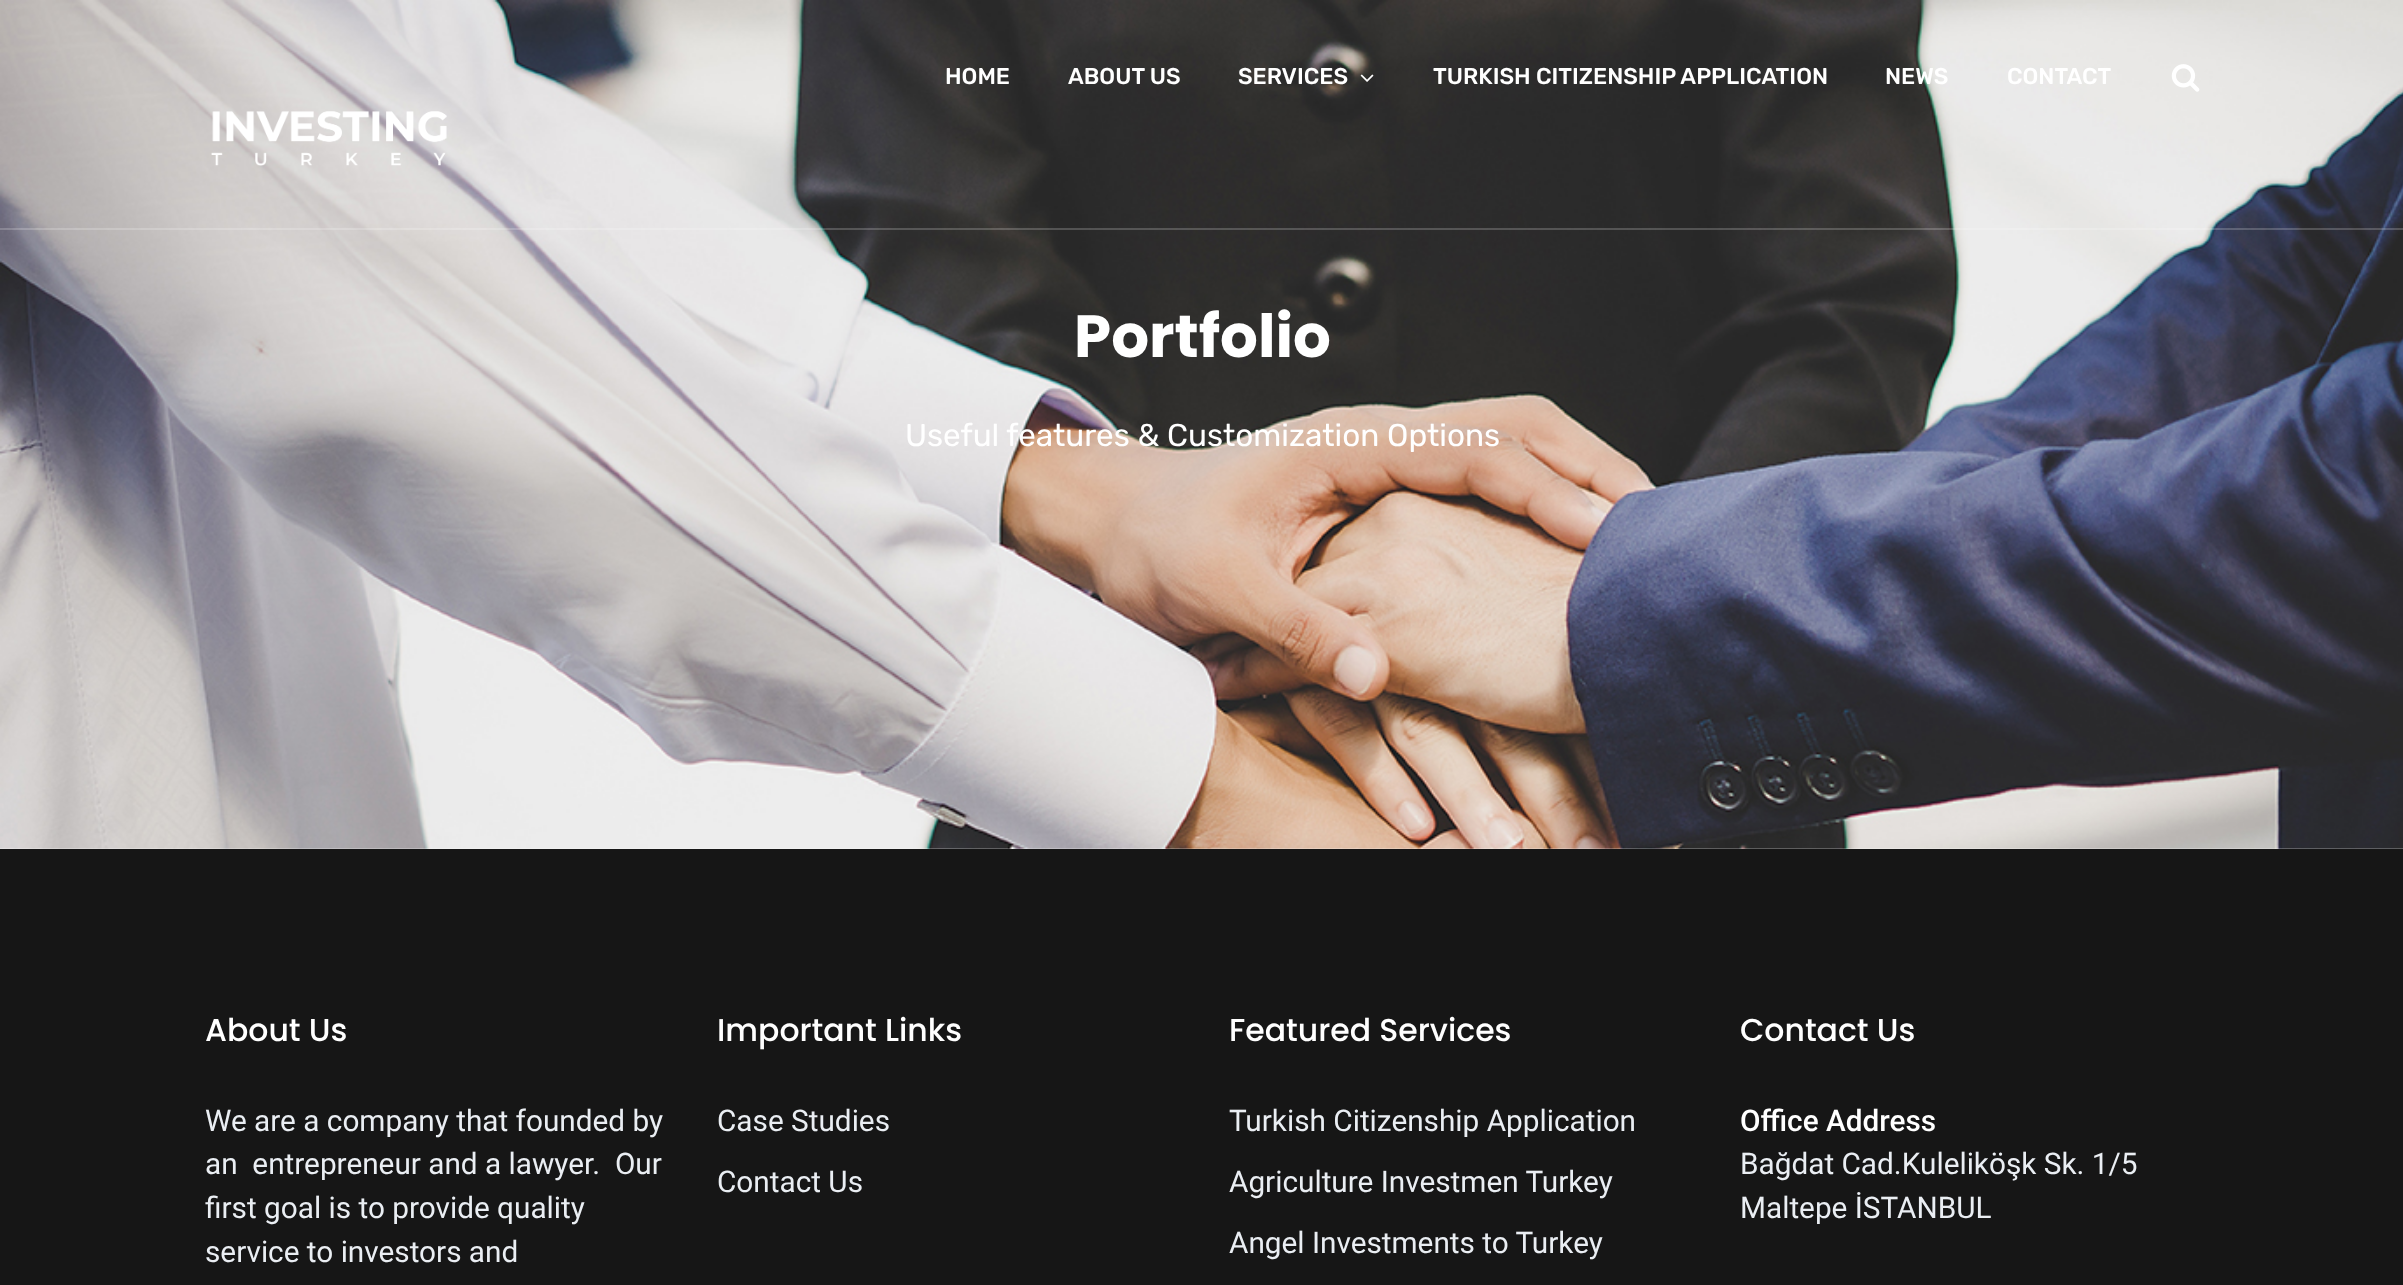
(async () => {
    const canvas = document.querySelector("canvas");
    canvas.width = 2403;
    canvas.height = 1285;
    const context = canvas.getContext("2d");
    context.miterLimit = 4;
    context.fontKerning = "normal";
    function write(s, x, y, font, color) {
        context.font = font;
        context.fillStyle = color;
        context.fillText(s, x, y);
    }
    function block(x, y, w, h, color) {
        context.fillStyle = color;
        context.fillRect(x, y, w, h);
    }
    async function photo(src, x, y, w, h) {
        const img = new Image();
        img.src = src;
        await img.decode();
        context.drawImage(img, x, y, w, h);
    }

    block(0, 0, 2403, 1285, "rgb(255, 255, 255)");
    await photo("media/4.png", 0, 0, 2403, 849);
    block(0, 228, 2403, 2, "rgba(255, 255, 255, 0.2)");
    write("HOME", 945, 84, "500 22.75px Rubik", "rgb(255, 255, 255)");
    write("ABOUT US", 1068, 84, "500 22.75px Rubik", "rgb(255, 255, 255)");
    write("SERVICES", 1238, 84, "500 22.75px Rubik", "rgb(255, 255, 255)");
    await photo("media/1.png", 1360, 74, 14, 8);
    write("TURKISH CITIZENSHIP APPLICATION", 1433, 84, "500 22.75px Rubik", "rgb(255, 255, 255)");
    write("NEWS", 1885, 84, "500 22.75px Rubik", "rgb(255, 255, 255)");
    write("CONTACT", 2007, 84, "500 22.75px Rubik", "rgb(255, 255, 255)");
    await photo("media/2.png", 2171, 64, 29, 28);
    await photo("media/3.png", 211, 111, 236, 55);
    write("Portfolio", 1074, 357, "bold 59.5px Poppins", "rgb(255, 255, 255)");
    write("Useful features & Customization Options", 905, 446, "31.5px Rubik", "rgb(255, 255, 255)");
    block(0, 849, 2403, 436, "rgb(22, 22, 22)");
    write("About Us", 205, 1041, "500 31.5px Poppins", "rgb(255, 255, 255)");
    write("We are a company that founded by", 205, 1131, "29.75px Roboto", "rgb(234, 238, 243)");
    write("an  entrepreneur and a lawyer.  Our", 205, 1174, "29.75px Roboto", "rgb(234, 238, 243)");
    write("first goal is to provide quality", 205, 1218, "29.75px Roboto", "rgb(234, 238, 243)");
    write("service to investors and", 205, 1262, "29.75px Roboto", "rgb(234, 238, 243)");
    write("Important Links", 717, 1041, "500 31.5px Poppins", "rgb(255, 255, 255)");
    write("Case Studies", 717, 1131, "29.75px Roboto", "rgb(234, 238, 243)");
    write("Contact Us", 717, 1192, "29.75px Roboto", "rgb(234, 238, 243)");
    write("Featured Services", 1229, 1041, "500 31.5px Poppins", "rgb(255, 255, 255)");
    write("Turkish Citizenship Application", 1229, 1131, "29.75px Roboto", "rgb(234, 238, 243)");
    write("Agriculture Investmen Turkey", 1229, 1192, "29.75px Roboto", "rgb(234, 238, 243)");
    write("Angel Investments to Turkey", 1229, 1253, "29.75px Roboto", "rgb(234, 238, 243)");
    write("Contact Us", 1740, 1041, "500 31.5px Poppins", "rgb(255, 255, 255)");
    write("Office Address", 1740, 1131, "500 29.75px Roboto", "rgb(255, 255, 255)");
    write("Bağdat Cad.Kuleliköşk Sk. 1/5", 1740, 1174, "29.75px Roboto", "rgb(234, 238, 243)");
    write("Maltepe İSTANBUL", 1740, 1218, "29.75px Roboto", "rgb(234, 238, 243)");
})();
